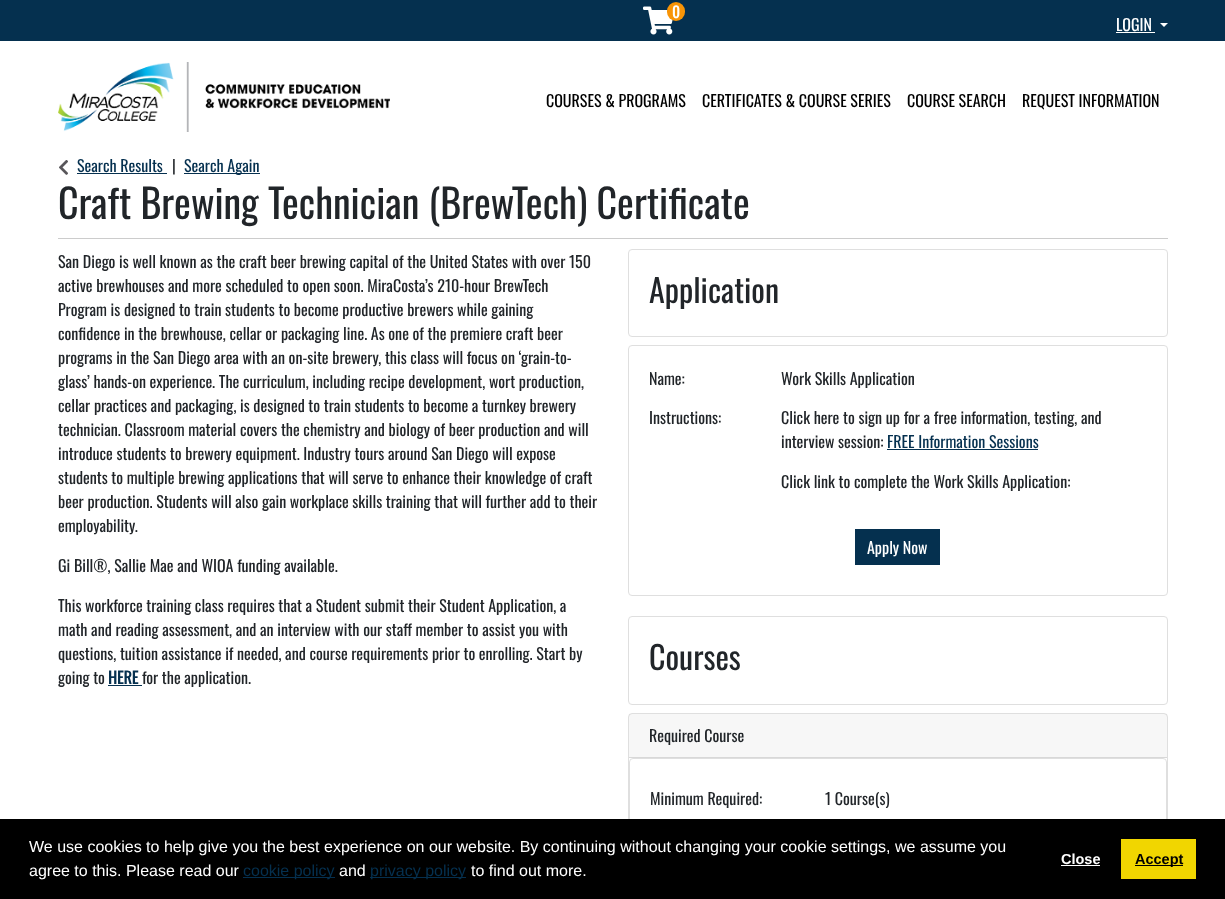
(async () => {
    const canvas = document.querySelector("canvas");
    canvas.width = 1225;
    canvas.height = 899;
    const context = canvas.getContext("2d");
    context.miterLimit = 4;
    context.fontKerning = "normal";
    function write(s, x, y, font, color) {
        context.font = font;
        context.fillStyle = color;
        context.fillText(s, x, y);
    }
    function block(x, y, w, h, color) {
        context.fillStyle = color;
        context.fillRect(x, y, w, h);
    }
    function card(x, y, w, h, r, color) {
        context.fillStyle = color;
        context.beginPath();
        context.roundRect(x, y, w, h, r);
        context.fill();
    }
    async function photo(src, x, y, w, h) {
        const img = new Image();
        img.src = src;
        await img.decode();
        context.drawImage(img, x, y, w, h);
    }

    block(0, 0, 1225, 899, "rgb(255, 255, 255)");
    block(0, 0, 1225, 41, "rgb(5, 48, 79)");
    await photo("media/1.png", 643, 6, 30, 29);
    card(667, 2, 18, 19, 9, "rgb(248, 148, 6)");
    write("0", 672, 18, "bold 15px Oswald", "rgb(255, 255, 255)");
    write("LOGIN", 1116, 31, "16px Oswald", "rgb(255, 255, 255)");
    block(1116, 32, 39, 1, "rgb(255, 255, 255)");
    context.beginPath();
    context.moveTo(1160, 23);
    context.lineTo(1168, 23);
    context.lineTo(1164, 27);
    context.closePath();
    context.fill();
    await photo("media/2.png", 58, 62, 332, 70);
    write("COURSES & PROGRAMS", 546, 107, "16px Oswald", "rgb(0, 0, 0)");
    write("CERTIFICATES & COURSE SERIES", 702, 107, "16px Oswald", "rgb(0, 0, 0)");
    write("COURSE SEARCH", 907, 107, "16px Oswald", "rgb(0, 0, 0)");
    write("REQUEST INFORMATION", 1022, 107, "16px Oswald", "rgb(0, 0, 0)");
    await photo("media/3.png", 59, 160, 9, 15);
    write("Search Results", 77, 172, "16px Oswald", "rgb(5, 48, 79)");
    block(77, 173, 90, 1, "rgb(5, 48, 79)");
    write("|", 172, 172, "16px Oswald", "rgb(33, 37, 41)");
    block(184, 173, 76, 1, "rgb(5, 48, 79)");
    write("Search Again", 184, 172, "16px Oswald", "rgb(5, 48, 79)");
    block(58, 238, 1110, 1, "rgb(204, 204, 204)");
    write("Craft Brewing Technician (BrewTech) Certificate", 58, 219, "40px Oswald", "rgb(33, 37, 41)");
    write("San Diego is well known as the craft beer brewing capital of the United States with over 150", 58, 268, "16px Oswald", "rgb(33, 37, 41)");
    write("active brewhouses and more scheduled to open soon. MiraCosta’s 210-hour BrewTech", 58, 292, "16px Oswald", "rgb(33, 37, 41)");
    write("Program is designed to train students to become productive brewers while gaining", 58, 316, "16px Oswald", "rgb(33, 37, 41)");
    write("confidence in the brewhouse, cellar or packaging line. As one of the premiere craft beer", 58, 340, "16px Oswald", "rgb(33, 37, 41)");
    write("programs in the San Diego area with an on-site brewery, this class will focus on ‘grain-to-", 58, 364, "16px Oswald", "rgb(33, 37, 41)");
    write("glass’ hands-on experience. The curriculum, including recipe development, wort production,", 58, 388, "16px Oswald", "rgb(33, 37, 41)");
    write("cellar practices and packaging, is designed to train students to become a turnkey brewery", 58, 412, "16px Oswald", "rgb(33, 37, 41)");
    write("technician. Classroom material covers the chemistry and biology of beer production and will", 58, 436, "16px Oswald", "rgb(33, 37, 41)");
    write("introduce students to brewery equipment. Industry tours around San Diego will expose", 58, 460, "16px Oswald", "rgb(33, 37, 41)");
    write("students to multiple brewing applications that will serve to enhance their knowledge of craft", 58, 484, "16px Oswald", "rgb(33, 37, 41)");
    write("beer production. Students will also gain workplace skills training that will further add to their", 58, 508, "16px Oswald", "rgb(33, 37, 41)");
    write("employability.", 58, 532, "16px Oswald", "rgb(33, 37, 41)");
    write("Gi Bill®, Sallie Mae and WIOA funding available.", 58, 572, "16px Oswald", "rgb(33, 37, 41)");
    write("This workforce training class requires that a Student submit their Student Application, a", 58, 612, "16px Oswald", "rgb(33, 37, 41)");
    write("math and reading assessment, and an interview with our staff member to assist you with", 58, 636, "16px Oswald", "rgb(33, 37, 41)");
    write("questions, tuition assistance if needed, and course requirements prior to enrolling. Start by", 58, 660, "16px Oswald", "rgb(33, 37, 41)");
    write("going to", 58, 684, "16px Oswald", "rgb(33, 37, 41)");
    write("HERE", 108, 684, "bold 16px Oswald", "rgb(5, 48, 79)");
    write("for the application.", 142, 684, "16px Oswald", "rgb(33, 37, 41)");
    block(108, 685, 34, 1, "rgb(5, 48, 79)");
    context.beginPath();
    context.roundRect(628.5, 249.5, 539, 87, 3.5);
    context.strokeStyle = "rgb(223, 223, 223)";
    context.stroke();
    write("Application", 649, 303, "32px Oswald", "rgb(33, 37, 41)");
    context.beginPath();
    context.roundRect(628.5, 345.5, 539, 250, 3.5);
    context.stroke();
    write("Name:", 649, 385, "16px Oswald", "rgb(33, 37, 41)");
    write("Work Skills Application", 781, 385, "16px Oswald", "rgb(33, 37, 41)");
    write("Instructions:", 649, 424, "16px Oswald", "rgb(33, 37, 41)");
    write("Click here to sign up for a free information, testing, and", 781, 424, "16px Oswald", "rgb(33, 37, 41)");
    write("interview session:", 781, 448, "16px Oswald", "rgb(33, 37, 41)");
    write("FREE Information Sessions", 887, 448, "16px Oswald", "rgb(5, 48, 79)");
    block(887, 449, 151, 1, "rgb(5, 48, 79)");
    write("Click link to complete the Work Skills Application:", 781, 488, "16px Oswald", "rgb(33, 37, 41)");
    block(855, 529, 85, 36, "rgb(5, 48, 79)");
    write("Apply Now", 867, 554, "16px Oswald", "rgb(255, 255, 255)");
    context.beginPath();
    context.roundRect(628.5, 616.5, 539, 88, 3.5);
    context.stroke();
    write("Courses", 649, 670, "32px Oswald", "rgb(33, 37, 41)");
    context.beginPath();
    context.roundRect(628.5, 713.5, 539, 181, 3.5);
    context.stroke();
    block(629, 714, 538, 43, "rgba(0, 0, 0, 0.03)");
    block(629, 757, 538, 1, "rgb(216, 216, 216)");
    write("Required Course", 649, 742, "16px Oswald", "rgb(33, 37, 41)");
    context.beginPath();
    context.roundRect(629.5, 758.5, 537, 135, 3.5);
    context.stroke();
    write("Minimum Required:", 650, 805, "16px Oswald", "rgb(33, 37, 41)");
    write("1 Course(s)", 825, 805, "16px Oswald", "rgb(33, 37, 41)");
    block(0, 819, 1225, 80, "rgb(0, 0, 0)");
    write("We use cookies to help give you the best experience on our website. By continuing without changing your cookie settings, we assume you", 29, 852, "16px Liberation Sans", "rgb(255, 255, 255)");
    write("agree to this. Please read our", 29, 876, "16px Liberation Sans", "rgb(255, 255, 255)");
    block(243, 877, 92, 1, "rgb(5, 48, 79)");
    write("cookie policy", 243, 876, "16px Liberation Sans", "rgb(5, 48, 79)");
    write("and", 339, 876, "16px Liberation Sans", "rgb(255, 255, 255)");
    block(370, 877, 96, 1, "rgb(5, 48, 79)");
    write("privacy policy", 370, 876, "16px Liberation Sans", "rgb(5, 48, 79)");
    write("to find out more.", 471, 876, "16px Liberation Sans", "rgb(255, 255, 255)");
    write("Close", 1061, 864, "bold 14.5px Liberation Sans", "rgb(255, 255, 255)");
    block(1061, 865, 39, 1, "rgb(255, 255, 255)");
    block(1121, 839, 75, 40, "rgb(241, 214, 0)");
    block(1135, 865, 48, 1, "rgb(0, 0, 0)");
    write("Accept", 1135, 864, "bold 14.5px Liberation Sans", "rgb(0, 0, 0)");
})();
